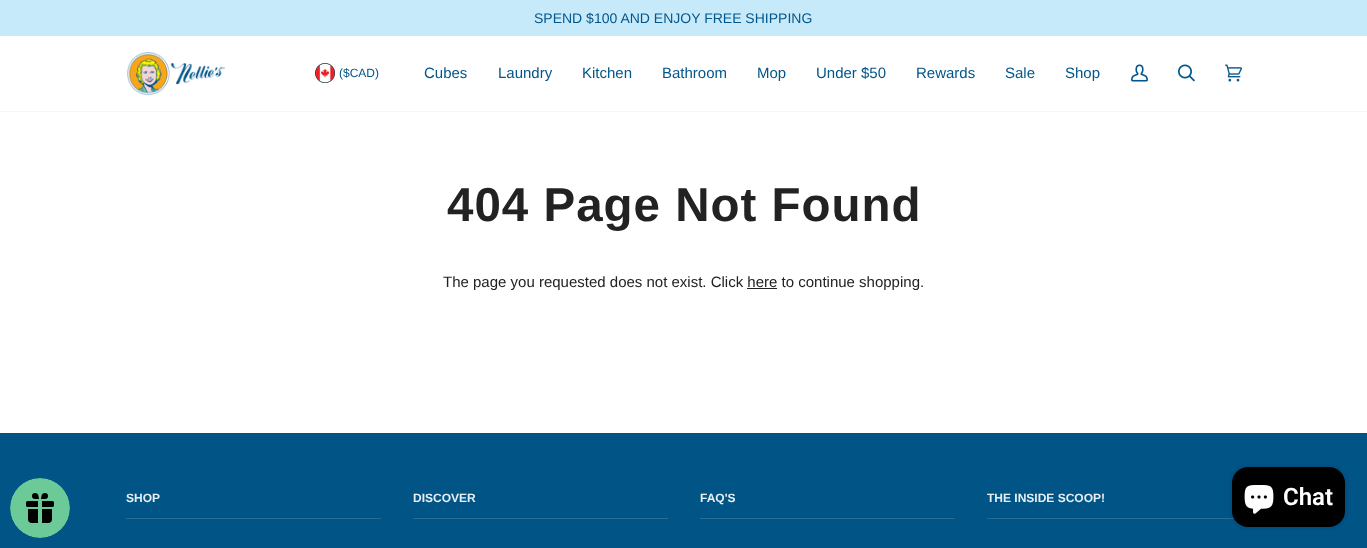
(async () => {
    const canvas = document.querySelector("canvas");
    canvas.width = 1367;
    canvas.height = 548;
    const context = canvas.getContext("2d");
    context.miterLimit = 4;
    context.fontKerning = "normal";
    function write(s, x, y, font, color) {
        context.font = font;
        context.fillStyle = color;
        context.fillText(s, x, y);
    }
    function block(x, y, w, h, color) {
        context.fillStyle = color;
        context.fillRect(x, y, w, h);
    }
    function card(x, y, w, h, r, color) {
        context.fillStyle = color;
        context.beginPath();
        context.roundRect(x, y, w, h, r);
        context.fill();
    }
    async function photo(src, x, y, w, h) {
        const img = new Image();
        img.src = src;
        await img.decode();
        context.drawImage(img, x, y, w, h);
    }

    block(0, 0, 1367, 548, "rgb(255, 255, 255)");
    block(0, 0, 1367, 36, "rgb(199, 234, 251)");
    write("SPEND $100 AND ENJOY FREE SHIPPING", 534, 23, "14px Liberation Sans", "rgb(2, 86, 138)");
    block(0, 111, 1367, 1, "rgb(247, 247, 247)");
    await photo("media/1.png", 127, 52, 98, 44);
    await photo("media/2.png", 315, 63, 20, 20);
    write("($CAD)", 339, 77, "12px Liberation Sans", "rgb(2, 86, 138)");
    write("Cubes", 424, 78, "15px Liberation Sans", "rgb(2, 86, 138)");
    write("Laundry", 498, 78, "15px Liberation Sans", "rgb(2, 86, 138)");
    write("Kitchen", 582, 78, "15px Liberation Sans", "rgb(2, 86, 138)");
    write("Bathroom", 662, 78, "15px Liberation Sans", "rgb(2, 86, 138)");
    write("Mop", 757, 78, "15px Liberation Sans", "rgb(2, 86, 138)");
    write("Under $50", 816, 78, "15px Liberation Sans", "rgb(2, 86, 138)");
    write("Rewards", 916, 78, "15px Liberation Sans", "rgb(2, 86, 138)");
    write("Sale", 1005, 78, "15px Liberation Sans", "rgb(2, 86, 138)");
    write("Shop", 1065, 78, "15px Liberation Sans", "rgb(2, 86, 138)");
    await photo("media/3.png", 1131, 64, 17, 18);
    await photo("media/4.png", 1178, 64, 17, 18);
    await photo("media/5.png", 1225, 64, 17, 18);
    context.letterSpacing = "1px";
    write("404 Page Not Found", 447, 221, "bold 47.5px Liberation Sans", "rgb(34, 34, 34)");
    context.letterSpacing = "0px";
    write("The page you requested does not exist. Click here to continue shopping.", 443, 287, "15px Liberation Sans", "rgb(34, 34, 34)");
    block(747, 288, 30, 1, "rgb(34, 34, 34)");
    block(0, 433, 1367, 115, "rgb(0, 84, 134)");
    await photo("media/6.png", 10, 478, 60, 60);
    block(126, 518, 255, 1, "rgb(38, 110, 152)");
    write("SHOP", 126, 502, "bold 12px Liberation Sans", "rgb(230, 238, 243)");
    block(413, 518, 255, 1, "rgb(38, 110, 152)");
    write("DISCOVER", 413, 502, "bold 12px Liberation Sans", "rgb(230, 238, 243)");
    block(700, 518, 255, 1, "rgb(38, 110, 152)");
    write("FAQ'S", 700, 502, "bold 12px Liberation Sans", "rgb(230, 238, 243)");
    block(987, 518, 255, 1, "rgb(38, 110, 152)");
    write("THE INSIDE SCOOP!", 987, 502, "bold 12px Liberation Sans", "rgb(230, 238, 243)");
    context.fillStyle = "rgba(0, 0, 0, 0.15)";
    context.filter = "blur(2.5px)";
    context.beginPath();
    context.roundRect(1232, 467, 113, 60, 16);
    context.fill();
    context.filter = "none";
    card(1232, 467, 113, 60, 16, "rgb(0, 0, 0)");
    await photo("media/7.png", 1244, 485, 30, 29);
    write("Chat", 1283, 505, "600 24px Roboto", "rgb(255, 255, 255)");
})();
